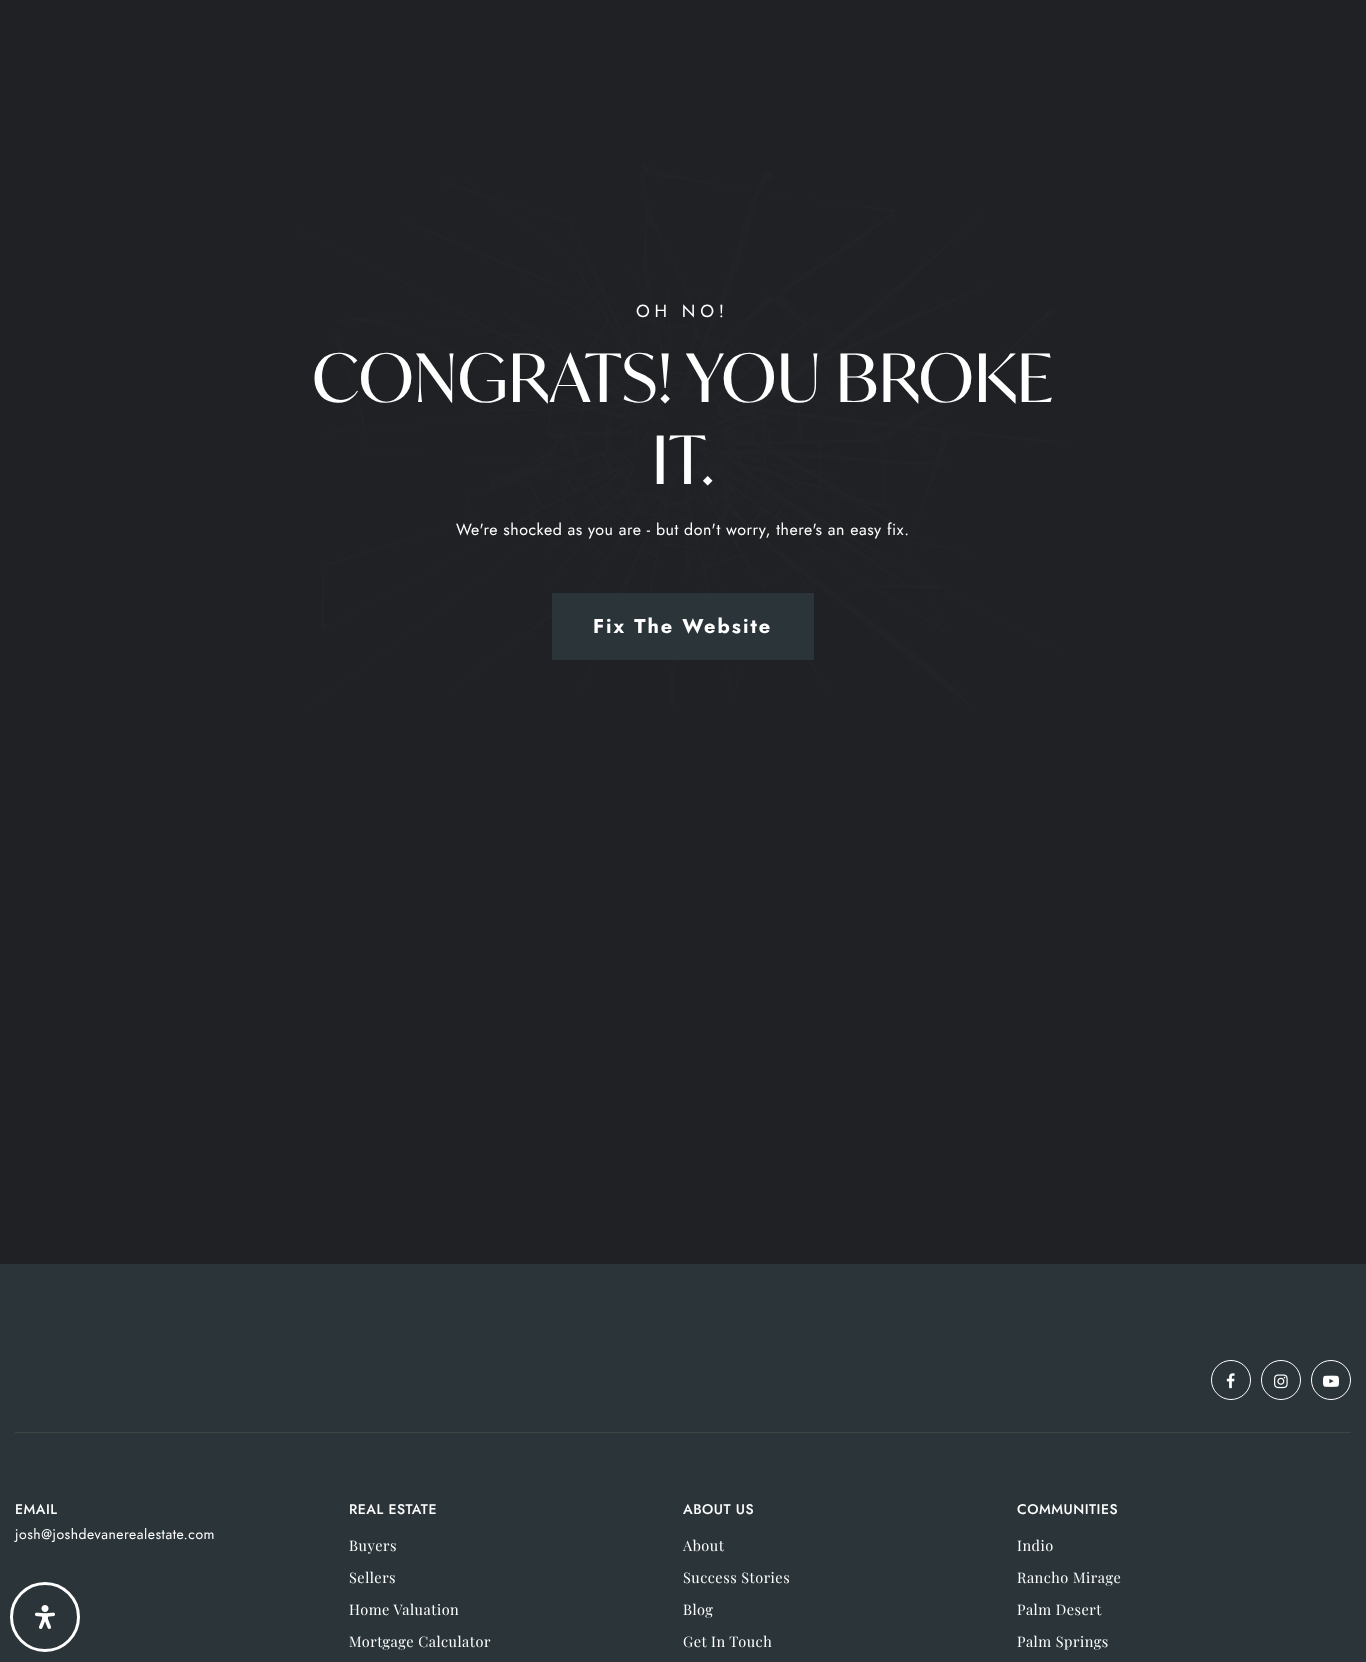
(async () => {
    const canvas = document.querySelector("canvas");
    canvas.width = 1366;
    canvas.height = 1662;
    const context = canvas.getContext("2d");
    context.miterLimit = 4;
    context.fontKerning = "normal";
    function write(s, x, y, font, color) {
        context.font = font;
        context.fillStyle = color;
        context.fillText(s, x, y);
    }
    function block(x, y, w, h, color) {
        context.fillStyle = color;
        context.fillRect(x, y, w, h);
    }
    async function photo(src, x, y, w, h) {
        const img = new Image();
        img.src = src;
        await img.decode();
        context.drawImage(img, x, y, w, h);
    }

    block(0, 0, 1366, 1662, "rgb(31, 33, 37)");
    await photo("media/1.png", 298, 158, 769, 551);
    context.letterSpacing = "4.75px";
    write("OH NO!", 636, 317, "17.5px Jost", "rgb(255, 255, 255)");
    context.letterSpacing = "0.5px";
    write("CONGRATS! YOU BROKE", 312, 402, "66.5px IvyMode", "rgb(255, 255, 255)");
    write("IT.", 652, 484, "66.5px IvyMode", "rgb(255, 255, 255)");
    write("We're shocked as you are - but don't worry, there's an easy fix.", 456, 535, "16px Jost", "rgb(255, 255, 255)");
    block(552, 593, 262, 67, "rgb(42, 52, 57)");
    context.letterSpacing = "2px";
    write("Fix The Website", 593, 633, "bold 20px Jost", "rgb(255, 255, 255)");
    block(0, 1264, 1366, 398, "rgb(42, 52, 57)");
    block(15, 1432, 1336, 1, "rgb(63, 69, 69)");
    context.beginPath();
    context.arc(1231, 1380, 19.5, 0, Math.PI * 2);
    context.strokeStyle = "rgb(255, 255, 255)";
    context.stroke();
    await photo("media/2.png", 1226, 1373, 9, 16);
    context.beginPath();
    context.arc(1281, 1380, 19.5, 0, Math.PI * 2);
    context.stroke();
    await photo("media/3.png", 1274, 1374, 14, 15);
    context.beginPath();
    context.arc(1331, 1380, 19.5, 0, Math.PI * 2);
    context.stroke();
    await photo("media/4.png", 1323, 1375, 16, 12);
    context.letterSpacing = "0.5px";
    write("EMAIL", 15, 1514, "500 14px Jost", "rgb(255, 255, 255)");
    write("josh@joshdevanerealestate.com", 15, 1539, "14px Jost", "rgb(255, 255, 255)");
    write("REAL ESTATE", 349, 1514, "500 14px Jost", "rgb(255, 255, 255)");
    write("Buyers", 349, 1551, "14.5px Playfair Display", "rgb(255, 255, 255)");
    write("Sellers", 349, 1583, "14.5px Playfair Display", "rgb(255, 255, 255)");
    write("Home Valuation", 349, 1615, "14.5px Playfair Display", "rgb(255, 255, 255)");
    write("Mortgage Calculator", 349, 1647, "14.5px Playfair Display", "rgb(255, 255, 255)");
    write("ABOUT US", 683, 1514, "500 14px Jost", "rgb(255, 255, 255)");
    write("About", 683, 1551, "14.5px Playfair Display", "rgb(255, 255, 255)");
    write("Success Stories", 683, 1583, "14.5px Playfair Display", "rgb(255, 255, 255)");
    write("Blog", 683, 1615, "14.5px Playfair Display", "rgb(255, 255, 255)");
    write("Get In Touch", 683, 1647, "14.5px Playfair Display", "rgb(255, 255, 255)");
    write("COMMUNITIES", 1017, 1514, "500 14px Jost", "rgb(255, 255, 255)");
    write("Indio", 1017, 1551, "14.5px Playfair Display", "rgb(255, 255, 255)");
    write("Rancho Mirage", 1017, 1583, "14.5px Playfair Display", "rgb(255, 255, 255)");
    write("Palm Desert", 1017, 1615, "14.5px Playfair Display", "rgb(255, 255, 255)");
    write("Palm Springs", 1017, 1647, "14.5px Playfair Display", "rgb(255, 255, 255)");
    context.beginPath();
    context.arc(45, 1617, 33.5, 0, Math.PI * 2);
    context.lineWidth = 3;
    context.stroke();
    await photo("media/5.png", 35, 1605, 20, 24);
})();
